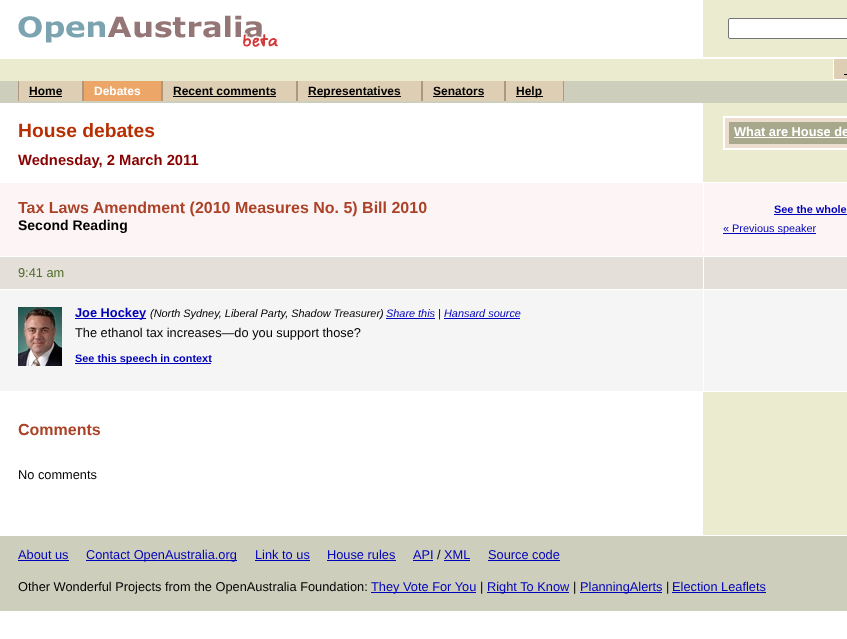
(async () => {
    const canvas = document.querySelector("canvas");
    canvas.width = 847;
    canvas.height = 639;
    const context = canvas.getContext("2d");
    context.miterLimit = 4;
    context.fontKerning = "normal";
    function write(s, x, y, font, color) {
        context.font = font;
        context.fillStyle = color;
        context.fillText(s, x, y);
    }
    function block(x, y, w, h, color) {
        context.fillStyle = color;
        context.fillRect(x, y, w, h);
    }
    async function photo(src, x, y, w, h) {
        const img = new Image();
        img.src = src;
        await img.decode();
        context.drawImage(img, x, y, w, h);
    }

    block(0, 0, 847, 639, "rgb(255, 255, 255)");
    await photo("media/1.png", 18, 15, 260, 32);
    block(703, 0, 144, 57, "rgb(235, 236, 207)");
    context.fillStyle = "rgb(255, 255, 255)";
    context.beginPath();
    context.roundRect(728.5, 18.5, 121, 20, 1.5);
    context.fill();
    context.strokeStyle = "rgb(118, 118, 118)";
    context.stroke();
    block(0, 59, 847, 22, "rgb(235, 236, 207)");
    block(834, 59, 13, 20, "rgb(222, 206, 179)");
    block(833, 79, 14, 1, "rgb(255, 255, 255)");
    block(833, 59, 1, 21, "rgb(255, 255, 255)");
    block(844, 74, 3, 1, "rgb(0, 0, 0)");
    block(0, 81, 847, 22, "rgb(205, 206, 188)");
    block(19, 81, 63, 20, "rgb(222, 206, 179)");
    block(82, 81, 2, 20, "rgb(174, 150, 127)");
    block(18, 81, 1, 20, "rgb(174, 150, 127)");
    write("Home", 29, 95, "bold 12px Liberation Sans", "rgb(0, 0, 0)");
    block(29, 96, 33, 1, "rgb(0, 0, 0)");
    block(84, 81, 77, 20, "rgb(235, 166, 104)");
    block(161, 81, 2, 20, "rgb(174, 150, 127)");
    write("Debates", 94, 95, "bold 12px Liberation Sans", "rgb(255, 255, 255)");
    block(163, 81, 133, 20, "rgb(222, 206, 179)");
    block(296, 81, 2, 20, "rgb(174, 150, 127)");
    write("Recent comments", 173, 95, "bold 12px Liberation Sans", "rgb(0, 0, 0)");
    block(173, 96, 103, 1, "rgb(0, 0, 0)");
    block(298, 81, 123, 20, "rgb(222, 206, 179)");
    block(421, 81, 2, 20, "rgb(174, 150, 127)");
    block(308, 96, 93, 1, "rgb(0, 0, 0)");
    write("Representatives", 308, 95, "bold 12px Liberation Sans", "rgb(0, 0, 0)");
    block(423, 81, 81, 20, "rgb(222, 206, 179)");
    block(504, 81, 2, 20, "rgb(174, 150, 127)");
    write("Senators", 433, 95, "bold 12px Liberation Sans", "rgb(0, 0, 0)");
    block(433, 96, 51, 1, "rgb(0, 0, 0)");
    block(506, 81, 57, 20, "rgb(222, 206, 179)");
    block(563, 81, 1, 20, "rgb(174, 150, 127)");
    block(516, 96, 27, 1, "rgb(0, 0, 0)");
    write("Help", 516, 95, "bold 12px Liberation Sans", "rgb(0, 0, 0)");
    block(703, 103, 144, 79, "rgb(235, 236, 207)");
    write("House debates", 18, 137, "bold 19.25px Liberation Sans", "rgb(184, 46, 0)");
    write("Wednesday, 2 March 2011", 18, 165, "bold 14.75px Liberation Sans", "rgb(136, 1, 1)");
    context.fillStyle = "rgb(236, 221, 207)";
    context.beginPath();
    context.rect(724, 117, 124, 32);
    context.fill();
    context.strokeStyle = "rgb(255, 255, 255)";
    context.lineWidth = 2;
    context.stroke();
    block(729, 122, 118, 22, "rgb(168, 169, 140)");
    write("What are House de", 734, 136, "bold 12.8px Liberation Sans", "rgb(255, 255, 255)");
    block(734, 137, 113, 1, "rgb(255, 255, 255)");
    block(0, 183, 847, 73, "rgb(253, 245, 245)");
    block(703, 183, 1, 70, "rgb(255, 255, 255)");
    write("Tax Laws Amendment (2010 Measures No. 5) Bill 2010", 18, 213, "bold 16px Liberation Sans", "rgb(171, 67, 41)");
    write("Second Reading", 18, 230, "bold 14px Liberation Sans", "rgb(0, 0, 0)");
    write("See the whole", 774, 213, "bold 10.9px Liberation Sans", "rgb(0, 0, 187)");
    block(774, 214, 73, 1, "rgb(0, 0, 187)");
    block(723, 233, 93, 1, "rgb(0, 0, 187)");
    write("« Previous speaker", 723, 232, "10.9px Liberation Sans", "rgb(0, 0, 187)");
    block(0, 257, 847, 32, "rgb(229, 223, 217)");
    block(703, 257, 1, 32, "rgb(255, 255, 255)");
    write("9:41 am", 18, 277, "12.8px Liberation Sans", "rgb(77, 108, 37)");
    block(0, 290, 847, 101, "rgb(245, 245, 245)");
    block(703, 290, 1, 101, "rgb(255, 255, 255)");
    await photo("media/2.png", 18, 307, 44, 59);
    block(75, 318, 71, 1, "rgb(0, 0, 187)");
    write("Joe Hockey", 75, 317, "bold 12.8px Liberation Sans", "rgb(0, 0, 187)");
    write("(North Sydney, Liberal Party, Shadow Treasurer)", 150, 317, "italic 10.9px Liberation Sans", "rgb(0, 0, 0)");
    write("Share this", 386, 317, "italic 10.9px Liberation Sans", "rgb(0, 0, 187)");
    block(386, 318, 49, 1, "rgb(0, 0, 187)");
    write("|", 438, 317, "italic 10.9px Liberation Sans", "rgb(0, 0, 0)");
    write("Hansard source", 444, 317, "italic 10.9px Liberation Sans", "rgb(0, 0, 187)");
    block(444, 318, 76, 1, "rgb(0, 0, 187)");
    write("The ethanol tax increases—do you support those?", 75, 337, "12.8px Liberation Sans", "rgb(0, 0, 0)");
    block(75, 363, 136, 1, "rgb(0, 0, 187)");
    write("See this speech in context", 75, 362, "bold 10.9px Liberation Sans", "rgb(0, 0, 187)");
    block(703, 392, 144, 143, "rgb(235, 236, 207)");
    write("Comments", 18, 435, "bold 16px Liberation Sans", "rgb(171, 67, 41)");
    write("No comments", 18, 479, "12.8px Liberation Sans", "rgb(0, 0, 0)");
    block(0, 536, 847, 75, "rgb(205, 206, 188)");
    write("About us", 18, 559, "12.8px Liberation Sans", "rgb(0, 0, 187)");
    block(18, 560, 51, 1, "rgb(0, 0, 187)");
    block(86, 560, 151, 1, "rgb(0, 0, 187)");
    write("Contact OpenAustralia.org", 86, 559, "12.8px Liberation Sans", "rgb(0, 0, 187)");
    write("Link to us", 255, 559, "12.8px Liberation Sans", "rgb(0, 0, 187)");
    block(255, 560, 55, 1, "rgb(0, 0, 187)");
    write("House rules", 327, 559, "12.8px Liberation Sans", "rgb(0, 0, 187)");
    block(327, 560, 69, 1, "rgb(0, 0, 187)");
    write("API", 413, 559, "12.8px Liberation Sans", "rgb(0, 0, 187)");
    block(413, 560, 20, 1, "rgb(0, 0, 187)");
    write("/", 437, 559, "12.8px Liberation Sans", "rgb(0, 0, 0)");
    write("XML", 444, 559, "12.8px Liberation Sans", "rgb(0, 0, 187)");
    block(444, 560, 26, 1, "rgb(0, 0, 187)");
    write("Source code", 488, 559, "12.8px Liberation Sans", "rgb(0, 0, 187)");
    block(488, 560, 72, 1, "rgb(0, 0, 187)");
    write("Other Wonderful Projects from the OpenAustralia Foundation:", 18, 591, "12.8px Liberation Sans", "rgb(0, 0, 0)");
    block(371, 592, 105, 1, "rgb(0, 0, 187)");
    write("They Vote For You", 371, 591, "12.8px Liberation Sans", "rgb(0, 0, 187)");
    write("|", 480, 591, "12.8px Liberation Sans", "rgb(0, 0, 0)");
    block(487, 592, 82, 1, "rgb(0, 0, 187)");
    write("Right To Know", 487, 591, "12.8px Liberation Sans", "rgb(0, 0, 187)");
    write("|", 573, 591, "12.8px Liberation Sans", "rgb(0, 0, 0)");
    block(580, 592, 82, 1, "rgb(0, 0, 187)");
    write("PlanningAlerts", 580, 591, "12.8px Liberation Sans", "rgb(0, 0, 187)");
    write("|", 666, 591, "12.8px Liberation Sans", "rgb(0, 0, 0)");
    write("Election Leaflets", 672, 591, "12.8px Liberation Sans", "rgb(0, 0, 187)");
    block(672, 592, 94, 1, "rgb(0, 0, 187)");
})();
